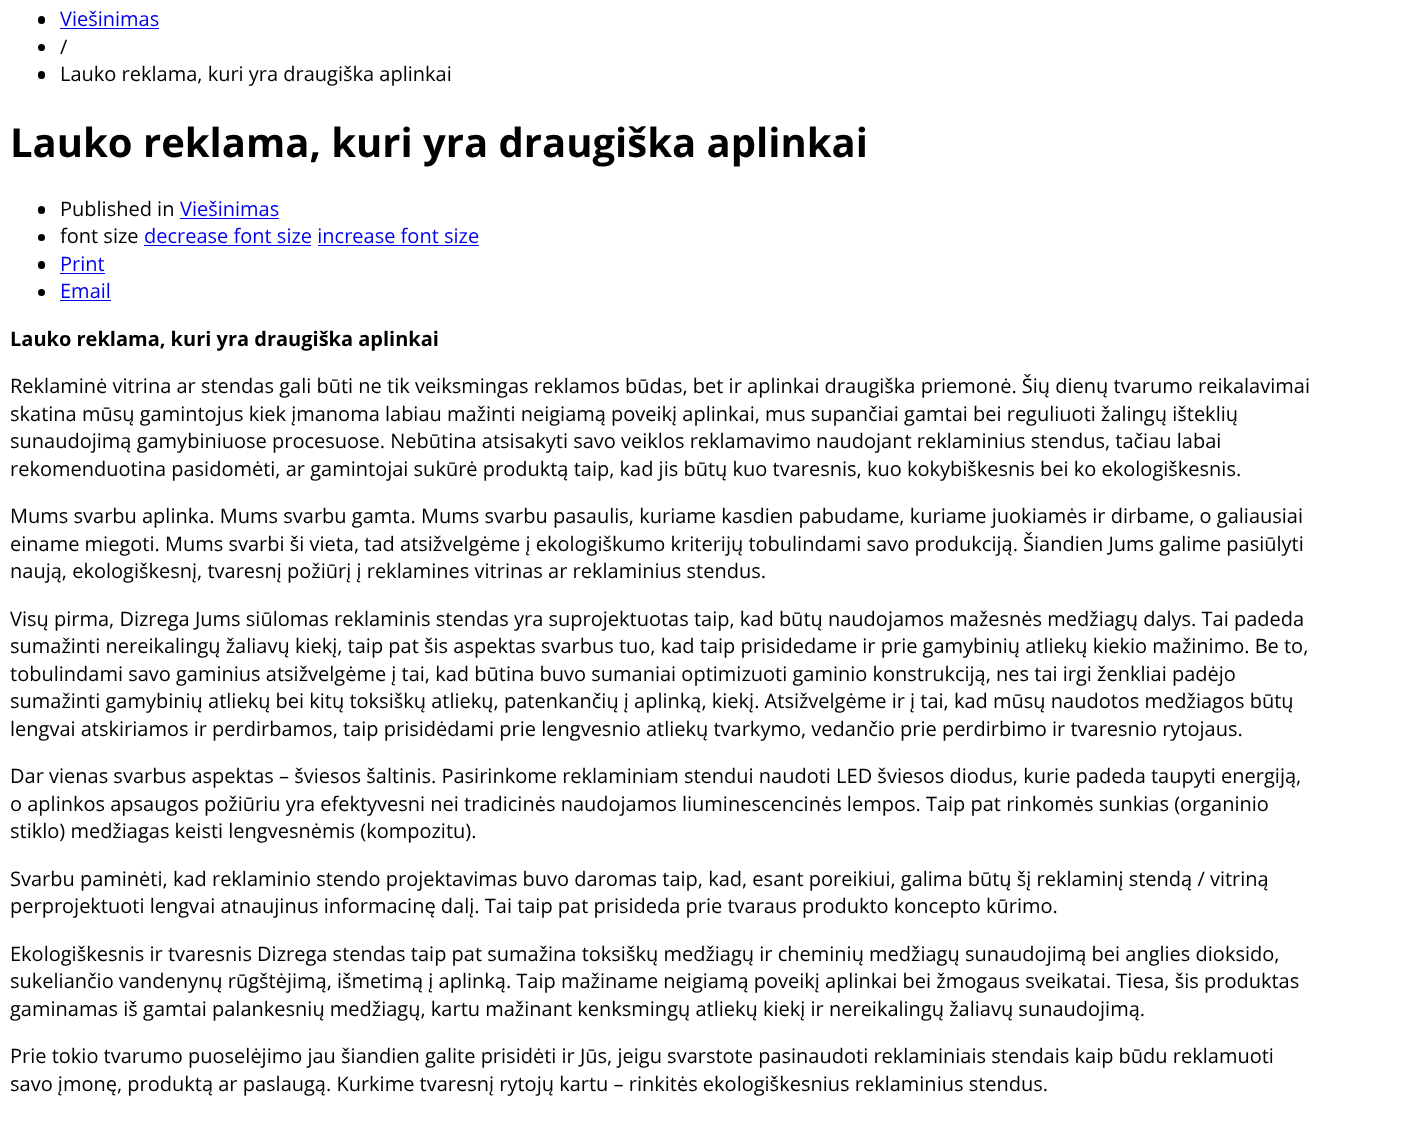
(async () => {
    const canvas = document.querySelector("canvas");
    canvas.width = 1422;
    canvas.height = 1134;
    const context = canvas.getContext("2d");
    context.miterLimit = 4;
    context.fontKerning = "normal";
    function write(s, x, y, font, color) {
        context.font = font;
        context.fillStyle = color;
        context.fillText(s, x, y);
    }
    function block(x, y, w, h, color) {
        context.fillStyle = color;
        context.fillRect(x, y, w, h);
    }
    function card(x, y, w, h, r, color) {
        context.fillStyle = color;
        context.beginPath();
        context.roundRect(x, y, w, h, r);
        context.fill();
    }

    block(0, 0, 1422, 1134, "rgb(255, 255, 255)");
    card(38, 16, 7, 8, 3.5, "rgb(0, 0, 0)");
    write("Viešinimas", 60, 26, "20px Open Sans", "rgb(0, 0, 238)");
    block(60, 28, 99, 1, "rgb(0, 0, 238)");
    context.fillStyle = "rgb(0, 0, 0)";
    context.beginPath();
    context.arc(41.5, 47.5, 3.5, 0, Math.PI * 2);
    context.fill();
    write("/", 60, 54, "20px Open Sans", "rgb(0, 0, 0)");
    card(38, 71, 7, 8, 3.5, "rgb(0, 0, 0)");
    write("Lauko reklama, kuri yra draugiška aplinkai", 60, 81, "20px Open Sans", "rgb(0, 0, 0)");
    write("Lauko reklama, kuri yra draugiška aplinkai", 10, 157, "bold 40px Open Sans", "rgb(0, 0, 0)");
    card(38, 206, 7, 8, 3.5, "rgb(0, 0, 0)");
    write("Published in", 60, 216, "20px Open Sans", "rgb(0, 0, 0)");
    write("Viešinimas", 180, 216, "20px Open Sans", "rgb(0, 0, 238)");
    block(180, 218, 99, 1, "rgb(0, 0, 238)");
    context.fillStyle = "rgb(0, 0, 0)";
    context.beginPath();
    context.arc(41.5, 237.5, 3.5, 0, Math.PI * 2);
    context.fill();
    write("font size", 60, 243, "20px Open Sans", "rgb(0, 0, 0)");
    write("decrease font size increase font size", 144, 243, "20px Open Sans", "rgb(0, 0, 238)");
    block(144, 245, 167, 1, "rgb(0, 0, 238)");
    block(318, 245, 161, 1, "rgb(0, 0, 238)");
    card(38, 261, 7, 8, 3.5, "rgb(0, 0, 0)");
    write("Print", 60, 271, "20px Open Sans", "rgb(0, 0, 238)");
    block(60, 273, 45, 1, "rgb(0, 0, 238)");
    context.fillStyle = "rgb(0, 0, 0)";
    context.beginPath();
    context.arc(41.5, 292.5, 3.5, 0, Math.PI * 2);
    context.fill();
    write("Email", 60, 298, "20px Open Sans", "rgb(0, 0, 238)");
    block(60, 300, 51, 1, "rgb(0, 0, 238)");
    write("Lauko reklama, kuri yra draugiška aplinkai", 10, 346, "bold 20px Open Sans", "rgb(0, 0, 0)");
    write("Reklaminė vitrina ar stendas gali būti ne tik veiksmingas reklamos būdas, bet ir aplinkai draugiška priemonė. Šių dienų tvarumo reikalavimai", 10, 393, "20px Open Sans", "rgb(0, 0, 0)");
    write("skatina mūsų gamintojus kiek įmanoma labiau mažinti neigiamą poveikį aplinkai, mus supančiai gamtai bei reguliuoti žalingų išteklių", 10, 421, "20px Open Sans", "rgb(0, 0, 0)");
    write("sunaudojimą gamybiniuose procesuose. Nebūtina atsisakyti savo veiklos reklamavimo naudojant reklaminius stendus, tačiau labai", 10, 448, "20px Open Sans", "rgb(0, 0, 0)");
    write("rekomenduotina pasidomėti, ar gamintojai sukūrė produktą taip, kad jis būtų kuo tvaresnis, kuo kokybiškesnis bei ko ekologiškesnis.", 10, 476, "20px Open Sans", "rgb(0, 0, 0)");
    write("Mums svarbu aplinka. Mums svarbu gamta. Mums svarbu pasaulis, kuriame kasdien pabudame, kuriame juokiamės ir dirbame, o galiausiai", 10, 523, "20px Open Sans", "rgb(0, 0, 0)");
    write("einame miegoti. Mums svarbi ši vieta, tad atsižvelgėme į ekologiškumo kriterijų tobulindami savo produkciją. Šiandien Jums galime pasiūlyti", 10, 551, "20px Open Sans", "rgb(0, 0, 0)");
    write("naują, ekologiškesnį, tvaresnį požiūrį į reklamines vitrinas ar reklaminius stendus.", 10, 578, "20px Open Sans", "rgb(0, 0, 0)");
    write("Visų pirma, Dizrega Jums siūlomas reklaminis stendas yra suprojektuotas taip, kad būtų naudojamos mažesnės medžiagų dalys. Tai padeda", 10, 626, "20px Open Sans", "rgb(0, 0, 0)");
    write("sumažinti nereikalingų žaliavų kiekį, taip pat šis aspektas svarbus tuo, kad taip prisidedame ir prie gamybinių atliekų kiekio mažinimo. Be to,", 10, 653, "20px Open Sans", "rgb(0, 0, 0)");
    write("tobulindami savo gaminius atsižvelgėme į tai, kad būtina buvo sumaniai optimizuoti gaminio konstrukciją, nes tai irgi ženkliai padėjo", 10, 681, "20px Open Sans", "rgb(0, 0, 0)");
    write("sumažinti gamybinių atliekų bei kitų toksiškų atliekų, patenkančių į aplinką, kiekį. Atsižvelgėme ir į tai, kad mūsų naudotos medžiagos būtų", 10, 708, "20px Open Sans", "rgb(0, 0, 0)");
    write("lengvai atskiriamos ir perdirbamos, taip prisidėdami prie lengvesnio atliekų tvarkymo, vedančio prie perdirbimo ir tvaresnio rytojaus.", 10, 736, "20px Open Sans", "rgb(0, 0, 0)");
    write("Dar vienas svarbus aspektas – šviesos šaltinis. Pasirinkome reklaminiam stendui naudoti LED šviesos diodus, kurie padeda taupyti energiją,", 10, 783, "20px Open Sans", "rgb(0, 0, 0)");
    write("o aplinkos apsaugos požiūriu yra efektyvesni nei tradicinės naudojamos liuminescencinės lempos. Taip pat rinkomės sunkias (organinio", 10, 811, "20px Open Sans", "rgb(0, 0, 0)");
    write("stiklo) medžiagas keisti lengvesnėmis (kompozitu).", 10, 838, "20px Open Sans", "rgb(0, 0, 0)");
    write("Svarbu paminėti, kad reklaminio stendo projektavimas buvo daromas taip, kad, esant poreikiui, galima būtų šį reklaminį stendą / vitriną", 10, 886, "20px Open Sans", "rgb(0, 0, 0)");
    write("perprojektuoti lengvai atnaujinus informacinę dalį. Tai taip pat prisideda prie tvaraus produkto koncepto kūrimo.", 10, 913, "20px Open Sans", "rgb(0, 0, 0)");
    write("Ekologiškesnis ir tvaresnis Dizrega stendas taip pat sumažina toksiškų medžiagų ir cheminių medžiagų sunaudojimą bei anglies dioksido,", 10, 961, "20px Open Sans", "rgb(0, 0, 0)");
    write("sukeliančio vandenynų rūgštėjimą, išmetimą į aplinką. Taip mažiname neigiamą poveikį aplinkai bei žmogaus sveikatai. Tiesa, šis produktas", 10, 988, "20px Open Sans", "rgb(0, 0, 0)");
    write("gaminamas iš gamtai palankesnių medžiagų, kartu mažinant kenksmingų atliekų kiekį ir nereikalingų žaliavų sunaudojimą.", 10, 1016, "20px Open Sans", "rgb(0, 0, 0)");
    write("Prie tokio tvarumo puoselėjimo jau šiandien galite prisidėti ir Jūs, jeigu svarstote pasinaudoti reklaminiais stendais kaip būdu reklamuoti", 10, 1063, "20px Open Sans", "rgb(0, 0, 0)");
    write("savo įmonę, produktą ar paslaugą. Kurkime tvaresnį rytojų kartu – rinkitės ekologiškesnius reklaminius stendus.", 10, 1091, "20px Open Sans", "rgb(0, 0, 0)");
})();
